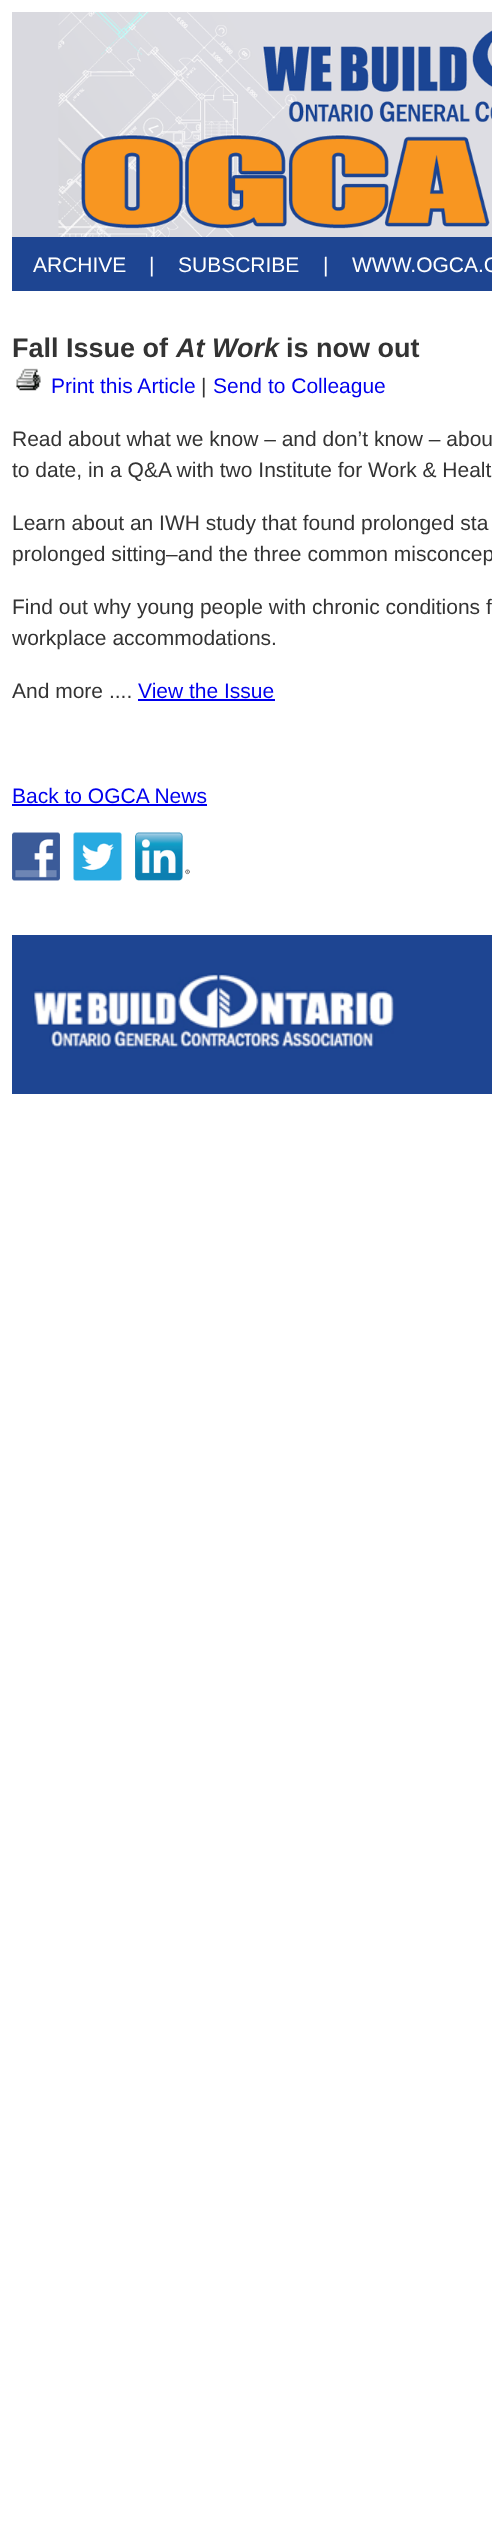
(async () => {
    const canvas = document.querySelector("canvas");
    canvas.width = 492;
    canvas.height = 2525;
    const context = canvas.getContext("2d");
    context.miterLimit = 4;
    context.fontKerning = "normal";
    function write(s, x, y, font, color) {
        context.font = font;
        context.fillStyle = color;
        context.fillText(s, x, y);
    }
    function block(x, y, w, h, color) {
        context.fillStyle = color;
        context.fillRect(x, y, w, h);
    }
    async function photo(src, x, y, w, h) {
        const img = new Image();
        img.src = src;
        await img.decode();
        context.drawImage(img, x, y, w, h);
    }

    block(0, 0, 492, 2525, "rgb(255, 255, 255)");
    await photo("media/1.png", 12, 12, 480, 225);
    block(12, 237, 480, 54, "rgb(30, 69, 146)");
    write("ARCHIVE", 33, 272, "21px Liberation Sans", "rgb(255, 255, 255)");
    write("|", 149, 272, "21px Liberation Sans", "rgb(255, 255, 255)");
    write("SUBSCRIBE", 178, 272, "21px Liberation Sans", "rgb(255, 255, 255)");
    write("|", 323, 272, "21px Liberation Sans", "rgb(255, 255, 255)");
    write("WWW.OGCA.C", 352, 272, "21px Liberation Sans", "rgb(255, 255, 255)");
    write("Fall Issue of", 12, 357, "bold 27px Liberation Sans", "rgb(51, 51, 51)");
    write("At Work", 176, 357, "italic bold 27px Liberation Sans", "rgb(51, 51, 51)");
    write("is now out", 286, 357, "bold 27px Liberation Sans", "rgb(51, 51, 51)");
    await photo("media/2.png", 16, 368, 25, 23);
    write("Print this Article", 51, 393, "21px Liberation Sans", "rgb(0, 0, 238)");
    write("|", 201, 393, "21px Liberation Sans", "rgb(51, 51, 51)");
    write("Send to Colleague", 213, 393, "21px Liberation Sans", "rgb(0, 0, 238)");
    write("Read about what we know – and don’t know – abou", 12, 446, "21px Liberation Sans", "rgb(51, 51, 51)");
    write("to date, in a Q&A with two Institute for Work & Healt", 12, 477, "21px Liberation Sans", "rgb(51, 51, 51)");
    write("Learn about an IWH study that found prolonged sta", 12, 530, "21px Liberation Sans", "rgb(51, 51, 51)");
    write("prolonged sitting–and the three common misconcep", 12, 561, "21px Liberation Sans", "rgb(51, 51, 51)");
    write("Find out why young people with chronic conditions f", 12, 614, "21px Liberation Sans", "rgb(51, 51, 51)");
    write("workplace accommodations.", 12, 645, "21px Liberation Sans", "rgb(51, 51, 51)");
    write("And more ....", 12, 698, "21px Liberation Sans", "rgb(51, 51, 51)");
    write("View the Issue", 138, 698, "21px Liberation Sans", "rgb(0, 0, 238)");
    block(138, 699, 137, 2, "rgb(0, 0, 238)");
    write("Back to OGCA News", 12, 803, "21px Liberation Sans", "rgb(0, 0, 238)");
    block(12, 804, 195, 2, "rgb(0, 0, 238)");
    await photo("media/3.png", 12, 832, 48, 49);
    await photo("media/4.png", 73, 832, 49, 49);
    await photo("media/5.png", 135, 832, 55, 49);
    block(12, 935, 480, 159, "rgb(30, 69, 146)");
    await photo("media/6.png", 33, 973, 361, 76);
})();
